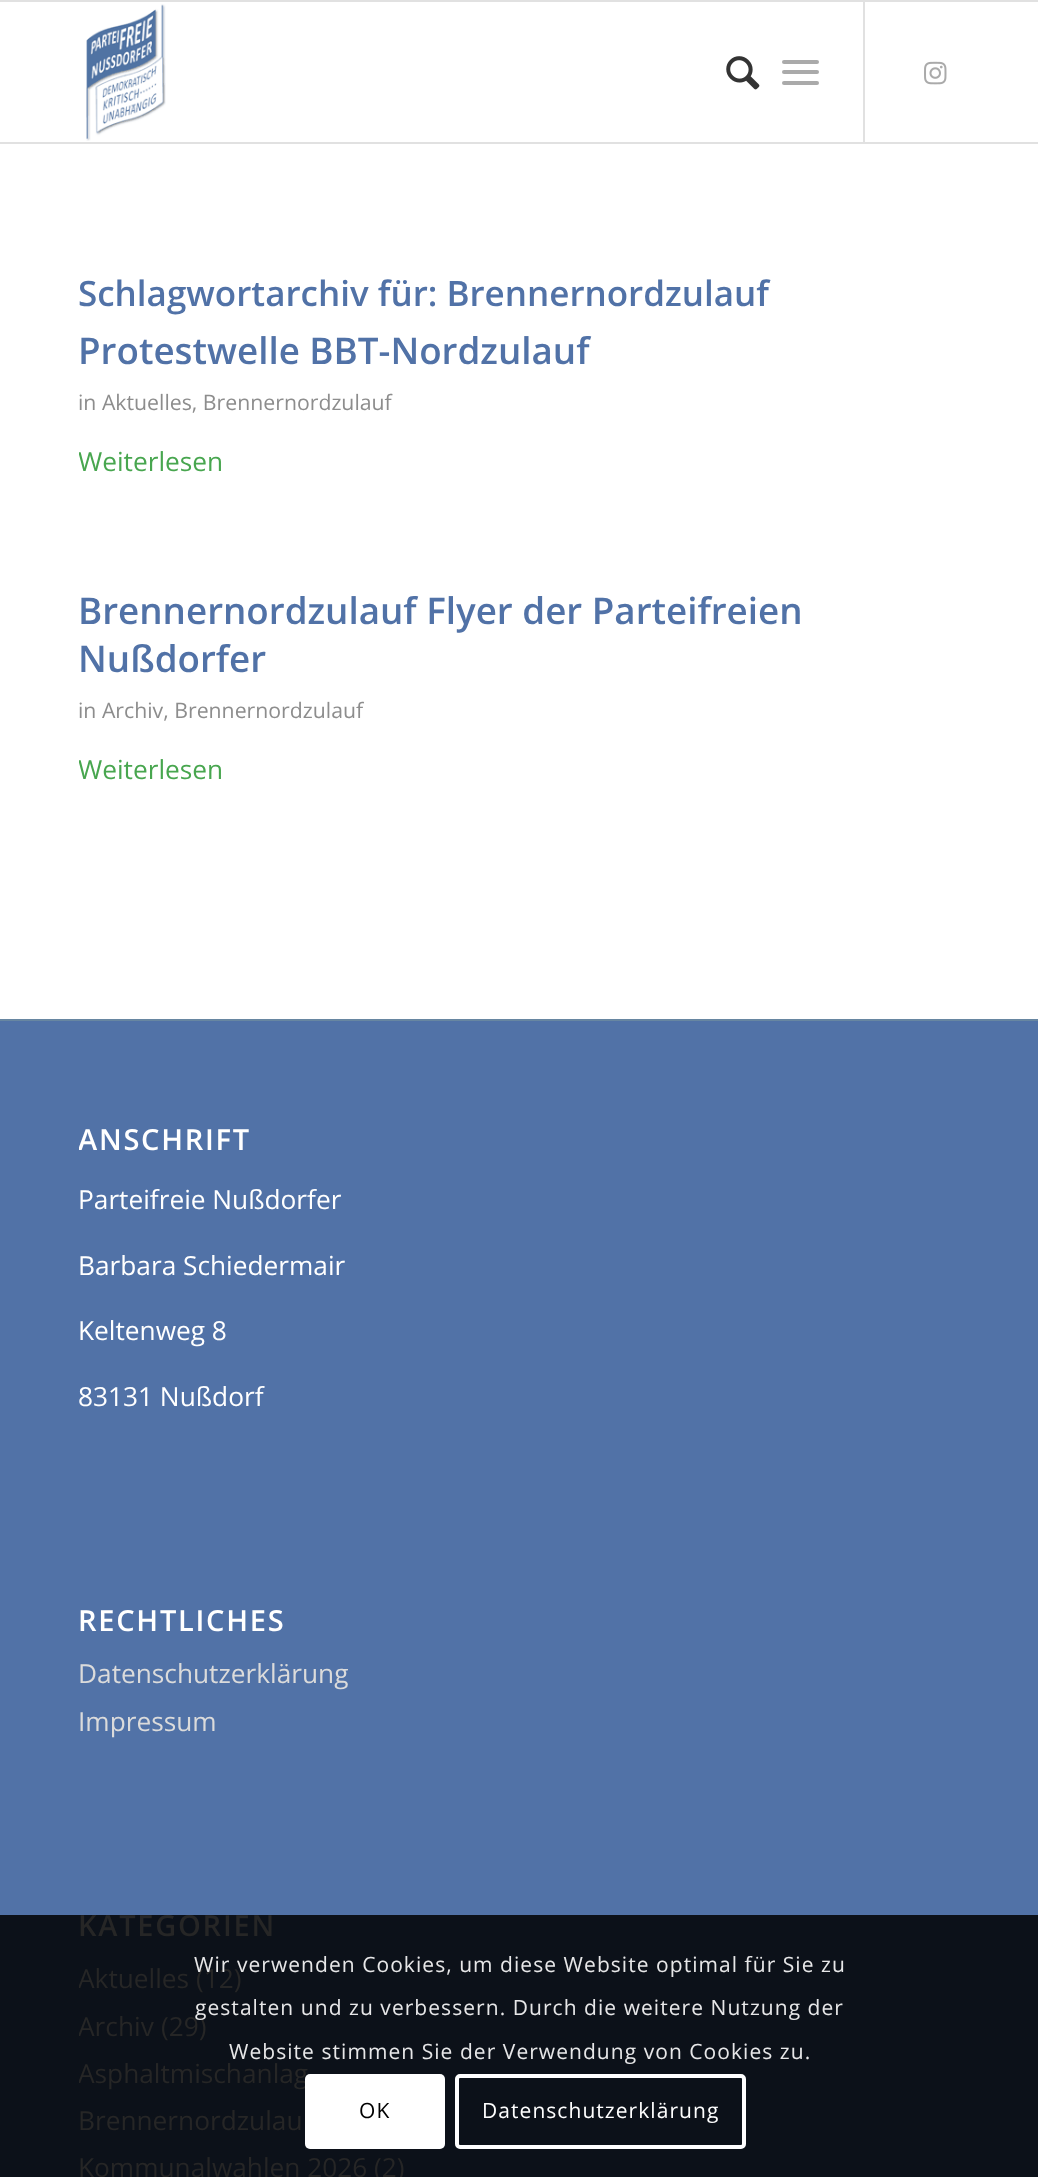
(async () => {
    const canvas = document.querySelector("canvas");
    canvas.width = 1038;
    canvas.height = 2177;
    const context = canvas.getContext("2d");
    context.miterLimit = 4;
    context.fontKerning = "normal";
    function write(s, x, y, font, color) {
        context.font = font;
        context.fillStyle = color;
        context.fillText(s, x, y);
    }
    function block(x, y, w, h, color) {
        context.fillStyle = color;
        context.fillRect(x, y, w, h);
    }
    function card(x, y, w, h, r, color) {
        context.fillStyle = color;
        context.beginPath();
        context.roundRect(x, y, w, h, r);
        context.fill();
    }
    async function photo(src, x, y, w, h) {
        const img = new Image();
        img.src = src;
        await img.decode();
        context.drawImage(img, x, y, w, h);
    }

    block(0, 0, 1038, 2177, "rgb(255, 255, 255)");
    block(0, 0, 1038, 2, "rgb(225, 225, 225)");
    block(0, 142, 1038, 2, "rgb(225, 225, 225)");
    await photo("media/1.png", 86, 4, 80, 137);
    block(863, 2, 2, 140, "rgb(225, 225, 225)");
    await photo("media/2.png", 726, 56, 34, 34);
    card(782, 70, 37, 4, 2, "rgb(170, 170, 170)");
    card(782, 60, 37, 4, 2, "rgb(170, 170, 170)");
    card(782, 81, 37, 4, 2, "rgb(170, 170, 170)");
    await photo("media/3.png", 924, 61, 23, 24);
    write("Schlagwortarchiv für: Brennernordzulauf", 78, 306, "600 35px Open Sans", "rgb(81, 114, 167)");
    write("Protestwelle BBT-Nordzulauf", 78, 364, "600 36.75px Open Sans", "rgb(81, 114, 167)");
    write("in Aktuelles, Brennernordzulauf", 78, 410, "21.25px Open Sans", "rgb(141, 141, 141)");
    context.save();
    context.beginPath();
    context.rect(79, 327, 882, 261);
    context.clip();
    write("Weiterlesen", 78, 471, "26.25px Open Sans", "rgb(72, 166, 79)");
    context.restore();
    write("Brennernordzulauf Flyer der Parteifreien", 78, 624, "600 36.75px Open Sans", "rgb(81, 114, 167)");
    write("Nußdorfer", 78, 672, "600 36.75px Open Sans", "rgb(81, 114, 167)");
    write("in Archiv, Brennernordzulauf", 78, 718, "21.25px Open Sans", "rgb(141, 141, 141)");
    context.save();
    context.beginPath();
    context.rect(79, 588, 882, 308);
    context.clip();
    write("Weiterlesen", 78, 779, "26.25px Open Sans", "rgb(72, 166, 79)");
    context.restore();
    block(0, 1021, 1038, 894, "rgb(81, 114, 167)");
    block(0, 1915, 1038, 262, "rgb(12, 17, 25)");
    block(0, 1019, 1038, 2, "rgb(103, 134, 161)");
    context.save();
    context.beginPath();
    context.rect(79, 1099, 882, 341);
    context.clip();
    context.letterSpacing = "1.75px";
    write("ANSCHRIFT", 78, 1150, "600 29px Open Sans", "rgb(255, 255, 255)");
    context.restore();
    write("Parteifreie Nußdorfer", 78, 1209, "26.25px Open Sans", "rgb(255, 255, 255)");
    write("Barbara Schiedermair", 78, 1275, "26.25px Open Sans", "rgb(255, 255, 255)");
    write("Keltenweg 8", 78, 1340, "26.25px Open Sans", "rgb(255, 255, 255)");
    write("83131 Nußdorf", 78, 1406, "26.25px Open Sans", "rgb(255, 255, 255)");
    context.letterSpacing = "1.75px";
    write("RECHTLICHES", 78, 1631, "600 29px Open Sans", "rgb(255, 255, 255)");
    context.letterSpacing = "0px";
    write("Datenschutzerklärung", 78, 1683, "26.25px Open Sans", "rgb(219, 219, 219)");
    write("Impressum", 78, 1731, "26.25px Open Sans", "rgb(219, 219, 219)");
    context.letterSpacing = "1.75px";
    write("KATEGORIEN", 78, 1936, "600 29px Open Sans", "rgb(38, 38, 38)");
    context.save();
    context.beginPath();
    context.rect(79, 1885, 882, 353);
    context.clip();
    context.letterSpacing = "0px";
    write("Aktuelles", 78, 1988, "26.25px Open Sans", "rgb(38, 38, 38)");
    context.restore();
    context.letterSpacing = "0px";
    write("(12)", 196, 1988, "26.25px Open Sans", "rgb(38, 38, 38)");
    context.save();
    context.beginPath();
    context.rect(79, 1885, 882, 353);
    context.clip();
    write("Archiv", 78, 2036, "26.25px Open Sans", "rgb(38, 38, 38)");
    context.restore();
    write("(29)", 161, 2036, "26.25px Open Sans", "rgb(38, 38, 38)");
    context.save();
    context.beginPath();
    context.rect(79, 1885, 882, 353);
    context.clip();
    write("Asphaltmischanlag", 78, 2083, "26.25px Open Sans", "rgb(38, 38, 38)");
    context.restore();
    write("Brennernordzulau", 78, 2130, "26.25px Open Sans", "rgb(38, 38, 38)");
    write("Kommunalwahlen 2026", 78, 2177, "26.25px Open Sans", "rgb(38, 38, 38)");
    write("(2)", 374, 2177, "26.25px Open Sans", "rgb(38, 38, 38)");
    context.letterSpacing = "1.05px";
    write("Wir verwenden Cookies, um diese Website optimal für Sie zu", 194, 1972, "21px Open Sans", "rgb(231, 231, 232)");
    write("gestalten und zu verbessern. Durch die weitere Nutzung der", 195, 2015, "21px Open Sans", "rgb(231, 231, 232)");
    write("Website stimmen Sie der Verwendung von Cookies zu.", 229, 2059, "21px Open Sans", "rgb(231, 231, 232)");
    card(305, 2074, 140, 75, 5, "rgb(255, 255, 255)");
    write("OK", 359, 2118, "21px Open Sans", "rgb(0, 0, 0)");
    context.beginPath();
    context.roundRect(457, 2076, 287, 71, 3);
    context.strokeStyle = "rgb(255, 255, 255)";
    context.lineWidth = 4;
    context.stroke();
    write("Datenschutzerklärung", 482, 2118, "21px Open Sans", "rgb(255, 255, 255)");
})();
